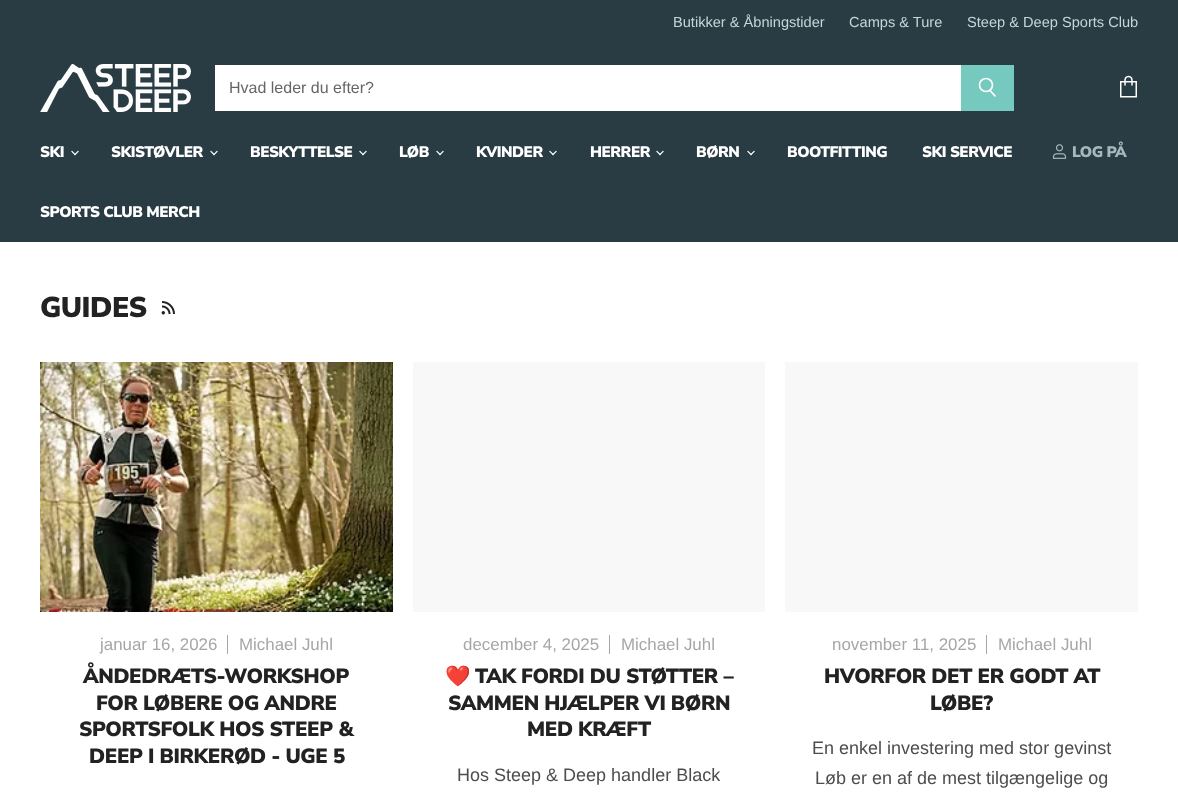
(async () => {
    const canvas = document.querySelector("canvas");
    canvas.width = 1178;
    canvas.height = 792;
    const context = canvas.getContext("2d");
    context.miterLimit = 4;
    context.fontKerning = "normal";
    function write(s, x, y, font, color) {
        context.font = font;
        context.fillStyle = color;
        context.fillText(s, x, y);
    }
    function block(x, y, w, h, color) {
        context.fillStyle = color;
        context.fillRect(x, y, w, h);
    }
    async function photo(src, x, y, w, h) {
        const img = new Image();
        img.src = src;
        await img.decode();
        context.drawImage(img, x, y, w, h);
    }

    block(0, 0, 1178, 792, "rgb(255, 255, 255)");
    block(0, 0, 1178, 242, "rgb(41, 59, 67)");
    write("Butikker & Åbningstider", 673, 27, "14.6px Liberation Sans", "rgb(196, 215, 216)");
    write("Camps & Ture", 849, 27, "14.6px Liberation Sans", "rgb(196, 215, 216)");
    write("Steep & Deep Sports Club", 967, 27, "14.6px Liberation Sans", "rgb(196, 215, 216)");
    await photo("media/1.png", 40, 64, 151, 48);
    block(215, 65, 746, 46, "rgb(255, 255, 255)");
    write("Hvad leder du efter?", 229, 93, "16px Liberation Sans", "rgb(102, 102, 102)");
    block(961, 65, 53, 46, "rgb(117, 201, 191)");
    context.beginPath();
    context.moveTo(995.5, 96.5);
    context.lineTo(990, 90.5);
    context.strokeStyle = "rgb(255, 255, 255)";
    context.lineWidth = 1.7;
    context.stroke();
    context.beginPath();
    context.arc(986, 85, 6.5, 0, Math.PI * 2);
    context.stroke();
    await photo("media/2.png", 1120, 75, 17, 23);
    context.letterSpacing = "-0.5px";
    write("SKI", 40, 157, "900 15.25px Nunito Sans", "rgb(255, 255, 255)");
    await photo("media/3.png", 71, 150, 8, 6);
    write("SKISTØVLER", 111, 157, "900 15.25px Nunito Sans", "rgb(255, 255, 255)");
    await photo("media/3.png", 210, 150, 8, 6);
    write("BESKYTTELSE", 250, 157, "900 15.25px Nunito Sans", "rgb(255, 255, 255)");
    await photo("media/3.png", 359, 150, 8, 6);
    write("LØB", 399, 157, "900 15.25px Nunito Sans", "rgb(255, 255, 255)");
    await photo("media/3.png", 436, 150, 8, 6);
    write("KVINDER", 476, 157, "900 15.25px Nunito Sans", "rgb(255, 255, 255)");
    await photo("media/3.png", 549, 150, 8, 6);
    write("HERRER", 590, 157, "900 15.25px Nunito Sans", "rgb(255, 255, 255)");
    await photo("media/3.png", 656, 150, 8, 6);
    write("BØRN", 696, 157, "900 15.25px Nunito Sans", "rgb(255, 255, 255)");
    await photo("media/3.png", 747, 150, 8, 6);
    write("BOOTFITTING", 787, 157, "900 15.25px Nunito Sans", "rgb(255, 255, 255)");
    write("SKI SERVICE", 922, 157, "900 15.25px Nunito Sans", "rgb(255, 255, 255)");
    write("SPORTS CLUB MERCH", 40, 217, "900 15.25px Nunito Sans", "rgb(255, 255, 255)");
    await photo("media/4.png", 1052, 144, 15, 15);
    write("LOG PÅ", 1072, 157, "900 15.25px Nunito Sans", "rgb(165, 184, 186)");
    write("GUIDES", 40, 317, "900 28.5px Nunito Sans", "rgb(34, 34, 34)");
    await photo("media/5.png", 161, 301, 14, 14);
    await photo("media/6.png", 40, 362, 353, 250);
    context.letterSpacing = "0px";
    write("januar 16, 2026", 100, 650, "16.9px Liberation Sans", "rgb(166, 166, 166)");
    block(227, 635, 1, 19, "rgb(166, 166, 166)");
    write("Michael Juhl", 239, 650, "16.9px Liberation Sans", "rgb(166, 166, 166)");
    context.letterSpacing = "-0.4px";
    write("ÅNDEDRÆTS-WORKSHOP", 83, 683, "900 20.5px Nunito Sans", "rgb(34, 34, 34)");
    write("FOR LØBERE OG ANDRE", 96, 710, "900 20.5px Nunito Sans", "rgb(34, 34, 34)");
    write("SPORTSFOLK HOS STEEP &", 79, 736, "900 20.5px Nunito Sans", "rgb(34, 34, 34)");
    write("DEEP I BIRKERØD - UGE 5", 89, 763, "900 20.5px Nunito Sans", "rgb(34, 34, 34)");
    block(413, 362, 352, 250, "rgb(248, 248, 248)");
    context.letterSpacing = "0px";
    write("december 4, 2025", 463, 650, "16.9px Liberation Sans", "rgb(166, 166, 166)");
    block(609, 635, 1, 19, "rgb(166, 166, 166)");
    write("Michael Juhl", 621, 650, "16.9px Liberation Sans", "rgb(166, 166, 166)");
    context.letterSpacing = "-0.4px";
    write("❤️", 445, 683, "bold 20.5px Noto Color Emoji", "rgb(34, 34, 34)");
    write("TAK FORDI DU STØTTER –", 475, 683, "900 20.5px Nunito Sans", "rgb(34, 34, 34)");
    write("SAMMEN HJÆLPER VI BØRN", 448, 710, "900 20.5px Nunito Sans", "rgb(34, 34, 34)");
    write("MED KRÆFT", 527, 736, "900 20.5px Nunito Sans", "rgb(34, 34, 34)");
    context.letterSpacing = "0px";
    write("Hos Steep & Deep handler Black", 457, 781, "18px Liberation Sans", "rgb(77, 77, 77)");
    block(785, 362, 353, 250, "rgb(248, 248, 248)");
    write("november 11, 2025", 832, 650, "16.9px Liberation Sans", "rgb(166, 166, 166)");
    block(986, 635, 1, 19, "rgb(166, 166, 166)");
    write("Michael Juhl", 998, 650, "16.9px Liberation Sans", "rgb(166, 166, 166)");
    context.letterSpacing = "-0.4px";
    write("HVORFOR DET ER GODT AT", 824, 683, "900 20.5px Nunito Sans", "rgb(34, 34, 34)");
    write("LØBE?", 930, 710, "900 20.5px Nunito Sans", "rgb(34, 34, 34)");
    context.letterSpacing = "0px";
    write("En enkel investering med stor gevinst", 812, 754, "18px Liberation Sans", "rgb(77, 77, 77)");
    write("Løb er en af de mest tilgængelige og", 815, 784, "18px Liberation Sans", "rgb(77, 77, 77)");
})();
